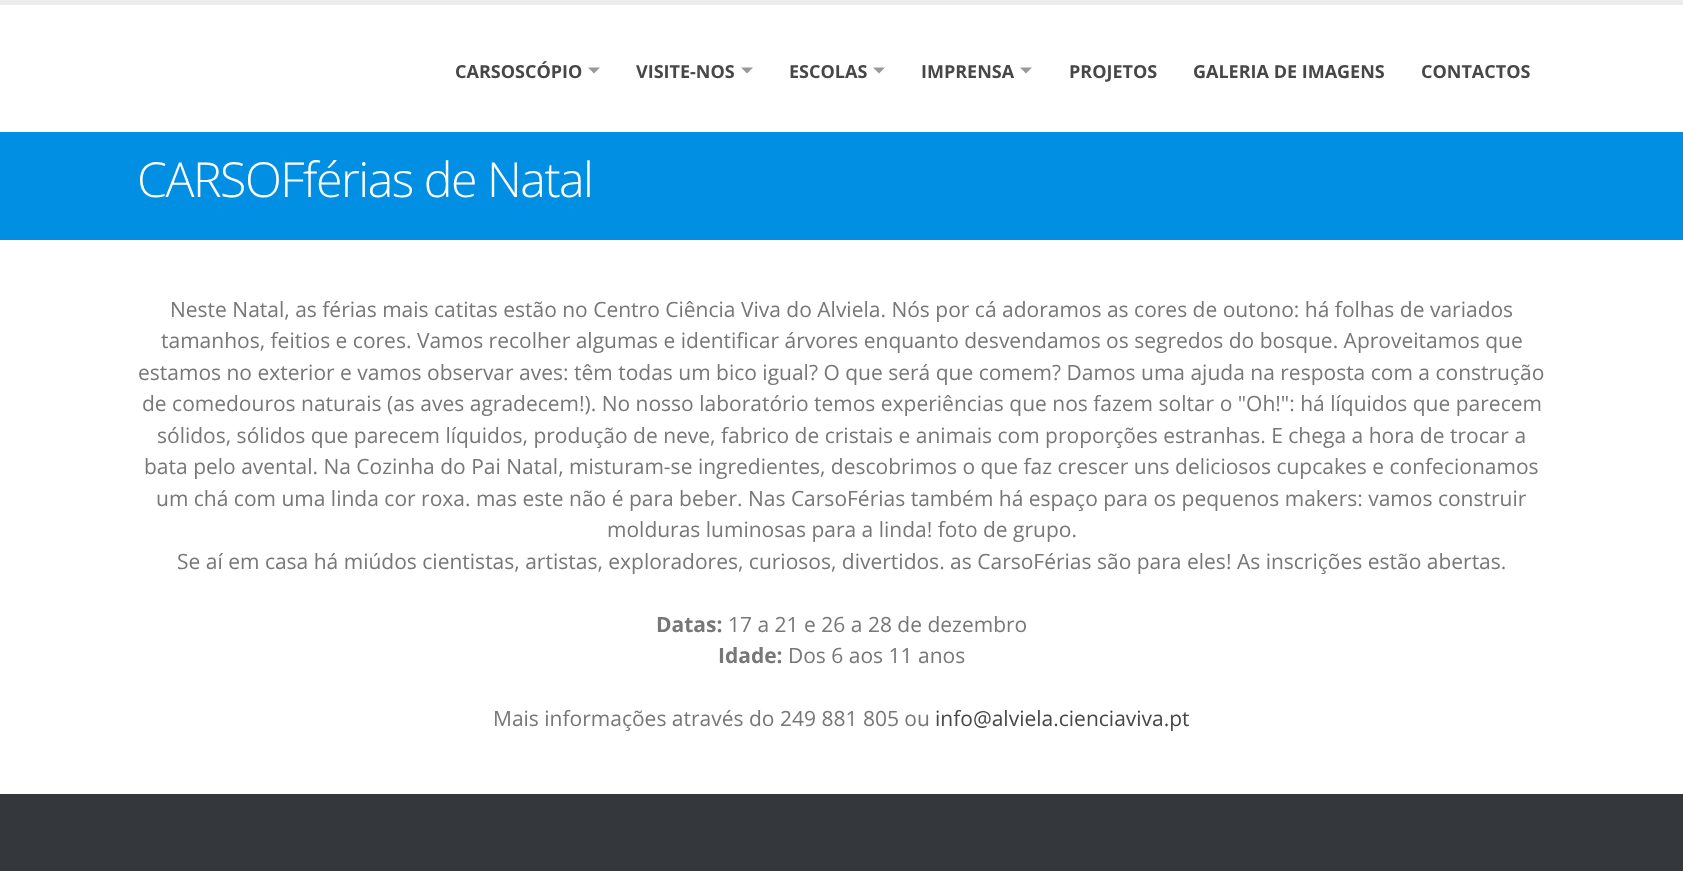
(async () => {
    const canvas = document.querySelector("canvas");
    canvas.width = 1683;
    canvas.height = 871;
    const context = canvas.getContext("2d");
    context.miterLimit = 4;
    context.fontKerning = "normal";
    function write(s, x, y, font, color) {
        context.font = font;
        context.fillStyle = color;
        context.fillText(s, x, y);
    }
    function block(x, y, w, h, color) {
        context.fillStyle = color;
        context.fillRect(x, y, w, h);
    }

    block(0, 0, 1683, 871, "rgb(255, 255, 255)");
    block(0, 0, 1683, 5, "rgb(237, 237, 237)");
    write("CARSOSCÓPIO", 455, 78, "bold 18px Open Sans", "rgb(71, 71, 71)");
    context.fillStyle = "rgb(153, 153, 153)";
    context.beginPath();
    context.moveTo(588, 67.5);
    context.lineTo(600, 67.5);
    context.lineTo(594, 73.5);
    context.closePath();
    context.fill();
    write("VISITE-NOS", 636, 78, "bold 18px Open Sans", "rgb(71, 71, 71)");
    context.fillStyle = "rgb(153, 153, 153)";
    context.beginPath();
    context.moveTo(741, 67.5);
    context.lineTo(753, 67.5);
    context.lineTo(747, 73.5);
    context.closePath();
    context.fill();
    write("ESCOLAS", 789, 78, "bold 18px Open Sans", "rgb(71, 71, 71)");
    context.fillStyle = "rgb(153, 153, 153)";
    context.beginPath();
    context.moveTo(873, 67.5);
    context.lineTo(885, 67.5);
    context.lineTo(879, 73.5);
    context.closePath();
    context.fill();
    write("IMPRENSA", 921, 78, "bold 18px Open Sans", "rgb(71, 71, 71)");
    context.fillStyle = "rgb(153, 153, 153)";
    context.beginPath();
    context.moveTo(1020, 67.5);
    context.lineTo(1032, 67.5);
    context.lineTo(1026, 73.5);
    context.closePath();
    context.fill();
    write("PROJETOS", 1069, 78, "bold 18px Open Sans", "rgb(71, 71, 71)");
    write("GALERIA DE IMAGENS", 1193, 78, "bold 18px Open Sans", "rgb(71, 71, 71)");
    write("CONTACTOS", 1421, 78, "bold 18px Open Sans", "rgb(71, 71, 71)");
    block(0, 132, 1683, 108, "rgb(0, 143, 226)");
    context.letterSpacing = "-1.5px";
    write("CARSOFférias de Natal", 137, 197, "300 48.25px Open Sans", "rgb(255, 255, 255)");
    context.letterSpacing = "0px";
    write("Neste Natal, as férias mais catitas estão no Centro Ciência Viva do Alviela. Nós por cá adoramos as cores de outono: há folhas de variados", 170, 317, "21px Open Sans", "rgb(119, 119, 119)");
    write("tamanhos, feitios e cores. Vamos recolher algumas e identificar árvores enquanto desvendamos os segredos do bosque. Aproveitamos que", 161, 348, "21px Open Sans", "rgb(119, 119, 119)");
    write("estamos no exterior e vamos observar aves: têm todas um bico igual? O que será que comem? Damos uma ajuda na resposta com a construção", 138, 380, "21px Open Sans", "rgb(119, 119, 119)");
    write("de comedouros naturais (as aves agradecem!). No nosso laboratório temos experiências que nos fazem soltar o \"Oh!\": há líquidos que parecem", 142, 411, "21px Open Sans", "rgb(119, 119, 119)");
    write("sólidos, sólidos que parecem líquidos, produção de neve, fabrico de cristais e animais com proporções estranhas. E chega a hora de trocar a", 157, 443, "21px Open Sans", "rgb(119, 119, 119)");
    write("bata pelo avental. Na Cozinha do Pai Natal, misturam-se ingredientes, descobrimos o que faz crescer uns deliciosos cupcakes e confecionamos", 144, 474, "21px Open Sans", "rgb(119, 119, 119)");
    write("um chá com uma linda cor roxa. mas este não é para beber. Nas CarsoFérias também há espaço para os pequenos makers: vamos construir", 156, 506, "21px Open Sans", "rgb(119, 119, 119)");
    write("molduras luminosas para a linda! foto de grupo.", 607, 537, "21px Open Sans", "rgb(119, 119, 119)");
    write("Se aí em casa há miúdos cientistas, artistas, exploradores, curiosos, divertidos. as CarsoFérias são para eles! As inscrições estão abertas.", 177, 569, "21px Open Sans", "rgb(119, 119, 119)");
    write("Datas:", 656, 632, "bold 21px Open Sans", "rgb(119, 119, 119)");
    write("17 a 21 e 26 a 28 de dezembro", 728, 632, "21px Open Sans", "rgb(119, 119, 119)");
    write("Idade:", 718, 663, "bold 21px Open Sans", "rgb(119, 119, 119)");
    write("Dos 6 aos 11 anos", 788, 663, "21px Open Sans", "rgb(119, 119, 119)");
    write("Mais informações através do 249 881 805 ou", 493, 726, "21px Open Sans", "rgb(119, 119, 119)");
    write("info@alviela.cienciaviva.pt", 935, 726, "21px Open Sans", "rgb(71, 71, 71)");
    block(0, 794, 1683, 77, "rgb(52, 56, 61)");
})();
